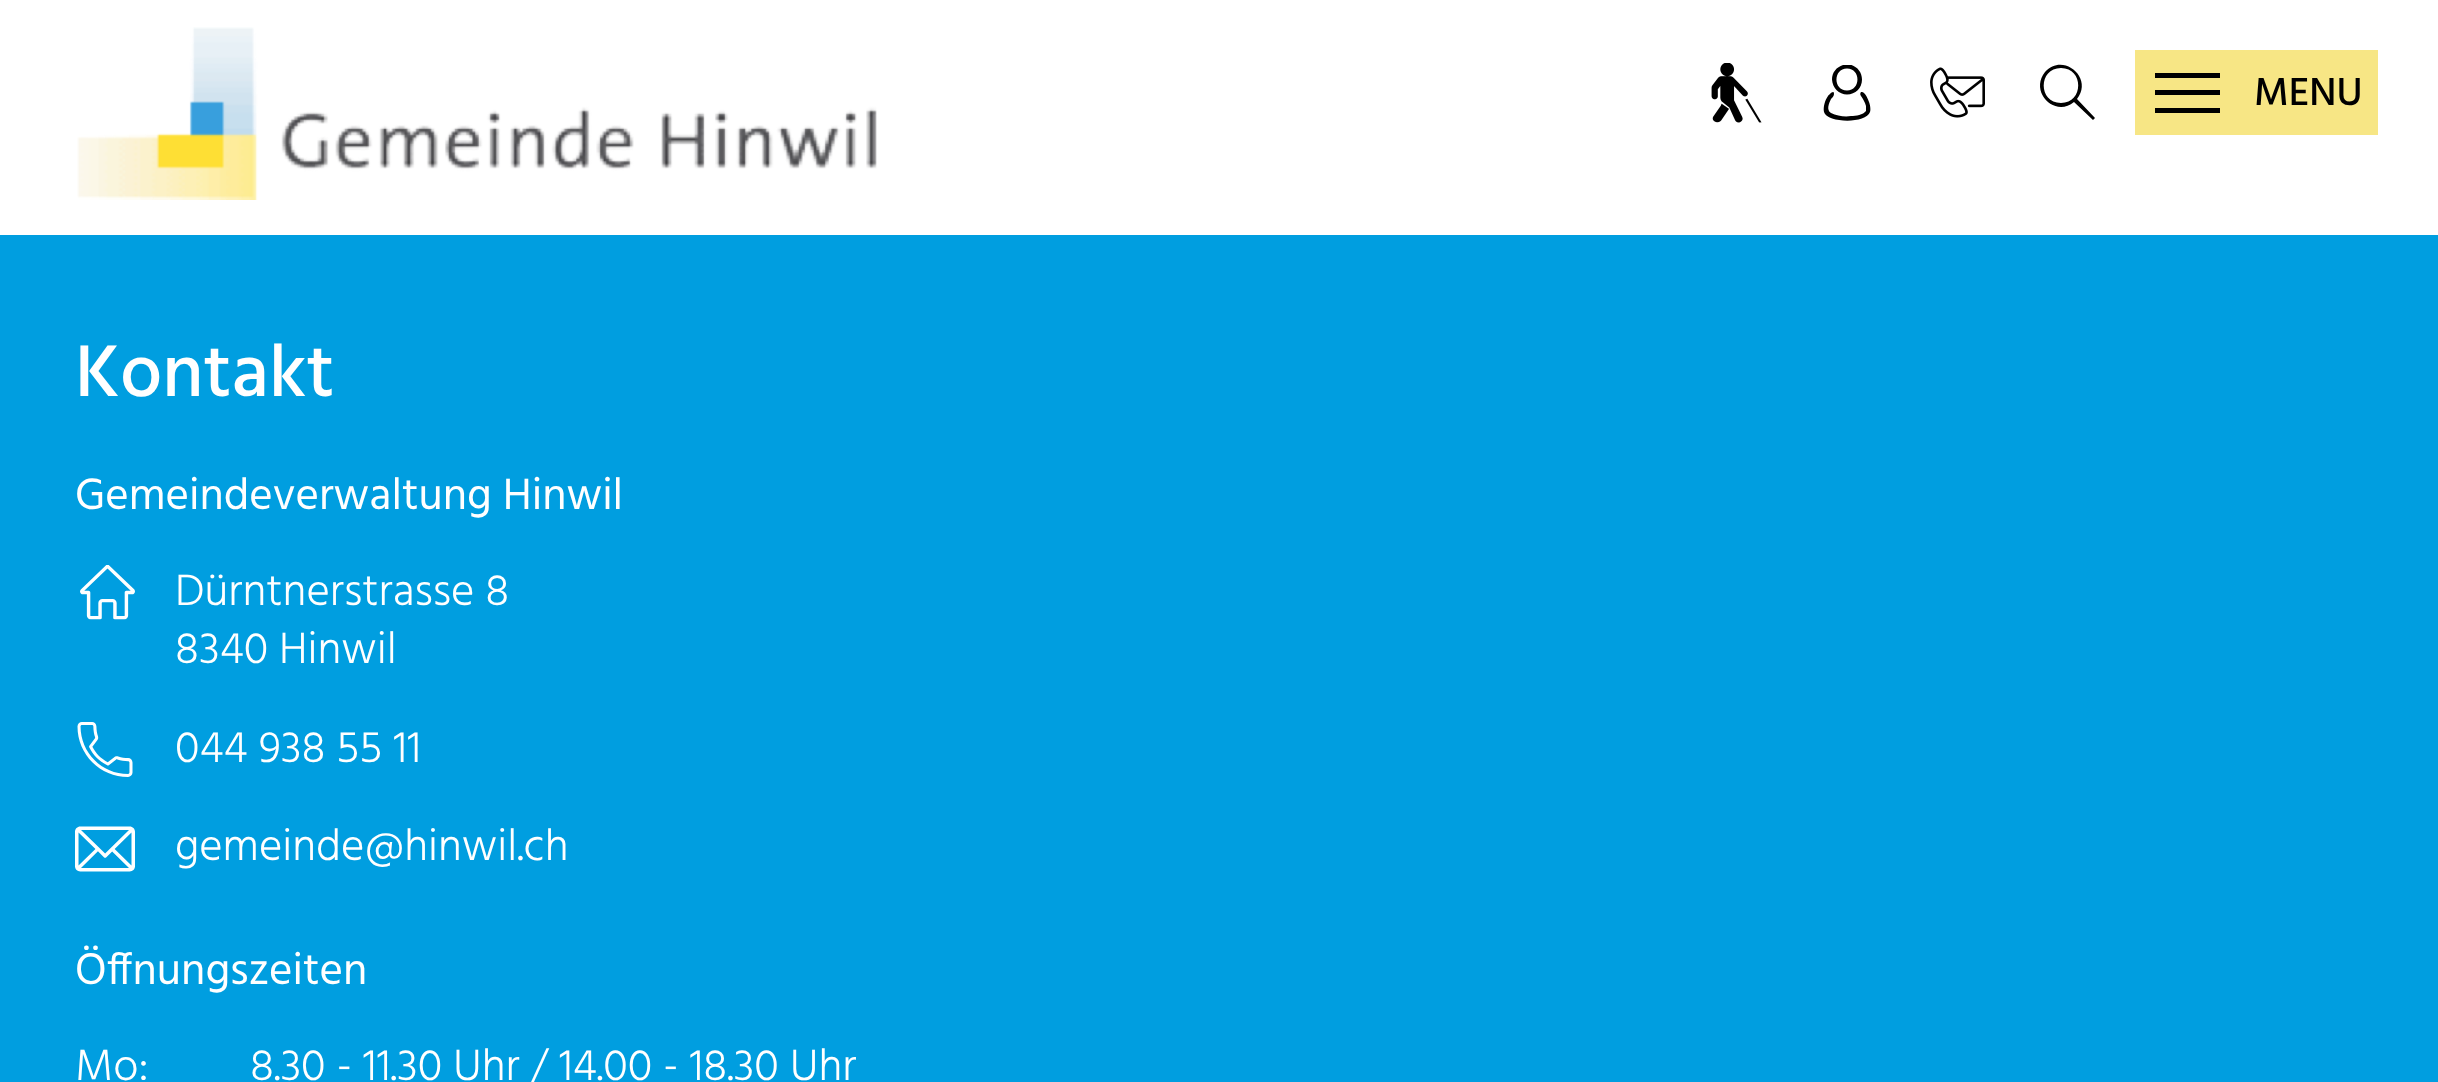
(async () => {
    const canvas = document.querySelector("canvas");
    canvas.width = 2438;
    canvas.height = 1082;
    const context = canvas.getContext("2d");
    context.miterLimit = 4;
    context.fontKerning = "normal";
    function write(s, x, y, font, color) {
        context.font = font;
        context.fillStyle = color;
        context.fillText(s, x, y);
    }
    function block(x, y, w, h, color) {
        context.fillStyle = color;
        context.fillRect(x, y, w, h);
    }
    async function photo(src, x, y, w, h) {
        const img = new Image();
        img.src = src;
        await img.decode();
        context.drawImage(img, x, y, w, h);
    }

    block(0, 0, 2438, 1082, "rgb(255, 255, 255)");
    await photo("media/1.png", 77, 27, 800, 173);
    await photo("media/2.png", 1711, 63, 51, 60);
    context.fillStyle = "rgb(0, 0, 0)";
    context.beginPath();
    context.moveTo(1861, 92);
    context.bezierCurveTo(1865, 91, 1868, 99, 1869, 102);
    context.bezierCurveTo(1870, 104, 1871, 110, 1870, 112);
    context.bezierCurveTo(1866, 124, 1827, 123, 1824, 112);
    context.bezierCurveTo(1823, 107, 1825, 100, 1828, 96);
    context.bezierCurveTo(1829, 95, 1834, 89, 1834, 94);
    context.bezierCurveTo(1834, 96, 1832, 98, 1831, 99);
    context.bezierCurveTo(1829, 103, 1826, 110, 1831, 113);
    context.bezierCurveTo(1837, 116, 1845, 117, 1851, 116);
    context.bezierCurveTo(1856, 116, 1863, 115, 1866, 111);
    context.lineTo(1866, 106);
    context.bezierCurveTo(1865, 102, 1863, 99, 1861, 96);
    context.bezierCurveTo(1860, 95, 1860, 93, 1861, 92);
    context.closePath();
    context.fill();
    context.beginPath();
    context.moveTo(1851.5, 65);
    context.bezierCurveTo(1857.5, 67, 1862, 72.5, 1862, 79.5);
    context.bezierCurveTo(1862, 88, 1855.5, 94.5, 1847, 94.5);
    context.bezierCurveTo(1839, 94.5, 1832.5, 88, 1832, 79.5);
    context.bezierCurveTo(1832, 72.5, 1836.5, 67, 1843, 65);
    context.closePath();
    context.moveTo(1847, 68.5);
    context.bezierCurveTo(1861, 68.5, 1861, 90.5, 1847, 90.5);
    context.bezierCurveTo(1833, 90.5, 1833, 68.5, 1847, 68.5);
    context.closePath();
    context.fill("evenodd");
    await photo("media/3.png", 1930, 67, 55, 51);
    context.beginPath();
    context.moveTo(2077, 99);
    context.bezierCurveTo(2094, 78, 2063, 52, 2045, 72);
    context.bezierCurveTo(2029, 92, 2055, 118, 2074, 102);
    context.lineTo(2093, 120);
    context.lineTo(2095, 118);
    context.closePath();
    context.moveTo(2061, 103);
    context.bezierCurveTo(2038, 103, 2038, 68, 2061, 68);
    context.bezierCurveTo(2084, 68, 2084, 103, 2061, 103);
    context.closePath();
    context.fill();
    block(2148, 63, 217, 59, "rgb(247, 230, 133)");
    context.strokeStyle = "rgb(247, 230, 133)";
    context.lineWidth = 13;
    context.strokeRect(2141.5, 56.5, 230, 72);
    block(2155, 73, 65, 5, "rgb(0, 0, 0)");
    block(2155, 90, 65, 5, "rgb(0, 0, 0)");
    block(2155, 108, 65, 5, "rgb(0, 0, 0)");
    write("MENU", 2254, 105, "500 40px Hind", "rgb(0, 0, 0)");
    block(0, 235, 2438, 847, "rgb(0, 158, 224)");
    write("Kontakt", 75, 396, "500 75px Hind", "rgb(255, 255, 255)");
    write("Gemeindeverwaltung Hinwil", 75, 509, "45px Hind", "rgb(255, 255, 255)");
    await photo("media/4.png", 80, 565, 55, 55);
    write("Dürntnerstrasse 8", 175, 605, "300 45px Hind", "rgb(255, 255, 255)");
    write("8340 Hinwil", 175, 663, "300 45px Hind", "rgb(255, 255, 255)");
    await photo("media/5.png", 77, 722, 56, 55);
    write("044 938 55 11", 175, 762, "300 45px Hind", "rgb(255, 255, 255)");
    await photo("media/6.png", 75, 826, 60, 46);
    write("gemeinde@hinwil.ch", 175, 860, "300 45px Hind", "rgb(255, 255, 255)");
    write("Öffnungszeiten", 75, 984, "45px Hind", "rgb(255, 255, 255)");
    write("Mo:", 75, 1080, "300 45px Hind", "rgb(255, 255, 255)");
    write("8.30 - 11.30 Uhr / 14.00 - 18.30 Uhr", 250, 1080, "300 45px Hind", "rgb(255, 255, 255)");
})();
